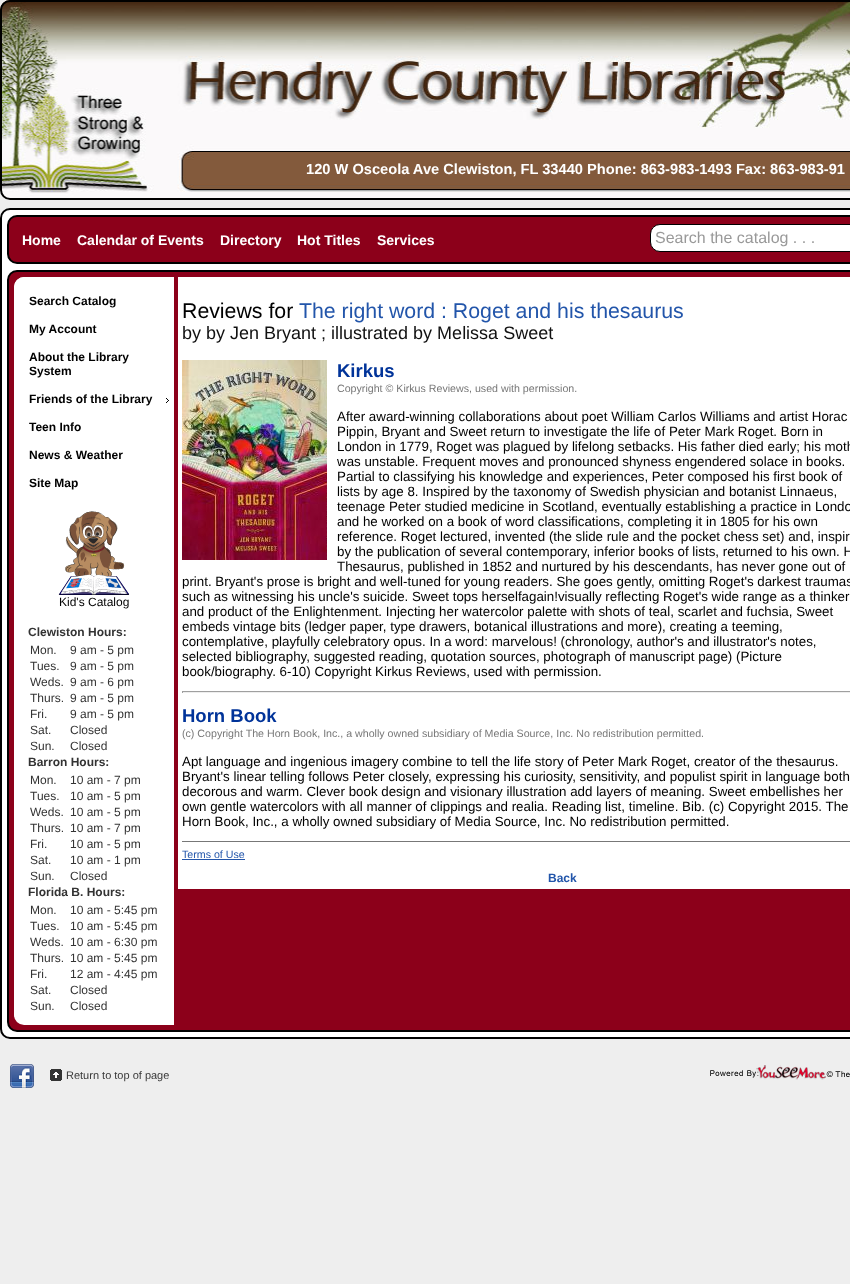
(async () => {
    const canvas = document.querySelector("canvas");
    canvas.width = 850;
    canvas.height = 1284;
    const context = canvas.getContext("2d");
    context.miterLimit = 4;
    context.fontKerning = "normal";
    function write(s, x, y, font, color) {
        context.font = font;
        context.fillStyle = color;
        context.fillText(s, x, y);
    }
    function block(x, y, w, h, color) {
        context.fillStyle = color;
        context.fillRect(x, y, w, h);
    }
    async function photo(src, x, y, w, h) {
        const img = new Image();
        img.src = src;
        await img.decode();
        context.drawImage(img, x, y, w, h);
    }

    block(0, 0, 850, 1284, "rgb(238, 238, 238)");
    await photo("media/1.png", 0, 0, 850, 200);
    context.beginPath();
    context.roundRect(1, 1, 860, 198, 9);
    context.strokeStyle = "rgb(0, 0, 0)";
    context.lineWidth = 2;
    context.stroke();
    write("120 W Osceola Ave Clewiston, FL 33440 Phone: 863-983-1493 Fax: 863-983-91", 306, 174, "bold 14.65px Liberation Sans", "rgb(255, 255, 255)");
    context.beginPath();
    context.roundRect(1, 209, 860, 829, 9);
    context.fill();
    context.stroke();
    context.fillStyle = "rgb(140, 0, 26)";
    context.beginPath();
    context.roundRect(8, 216, 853, 47, 9);
    context.fill();
    context.stroke();
    write("Home", 22, 245, "bold 14px Liberation Sans", "rgb(255, 255, 255)");
    write("Calendar of Events", 77, 245, "bold 14px Liberation Sans", "rgb(255, 255, 255)");
    write("Directory", 220, 245, "bold 14px Liberation Sans", "rgb(255, 255, 255)");
    write("Hot Titles", 297, 245, "bold 14px Liberation Sans", "rgb(255, 255, 255)");
    write("Services", 377, 245, "bold 14px Liberation Sans", "rgb(255, 255, 255)");
    context.beginPath();
    context.roundRect(650.5, 224.5, 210, 27, 9.5);
    context.fill();
    context.lineWidth = 1;
    context.stroke();
    write("Search the catalog . . .", 655, 243, "16px Liberation Sans", "rgb(153, 153, 153)");
    context.fillStyle = "rgb(140, 0, 26)";
    context.beginPath();
    context.roundRect(8, 271, 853, 760, 9);
    context.fill();
    context.lineWidth = 2;
    context.stroke();
    await photo("media/2.png", 14, 277, 160, 748);
    context.fillStyle = "rgb(255, 255, 255)";
    context.beginPath();
    context.roundRect(14, 277, 160, 742, [10, 0, 0, 10]);
    context.fill();
    write("Search Catalog", 29, 305, "bold 12px Liberation Sans", "rgb(0, 0, 0)");
    write("My Account", 29, 333, "bold 12px Liberation Sans", "rgb(0, 0, 0)");
    write("About the Library", 29, 361, "bold 12px Liberation Sans", "rgb(0, 0, 0)");
    write("System", 29, 375, "bold 12px Liberation Sans", "rgb(0, 0, 0)");
    await photo("media/3.png", 166, 398, 3, 5);
    write("Friends of the Library", 29, 403, "bold 12px Liberation Sans", "rgb(0, 0, 0)");
    write("Teen Info", 29, 431, "bold 12px Liberation Sans", "rgb(0, 0, 0)");
    write("News & Weather", 29, 459, "bold 12px Liberation Sans", "rgb(0, 0, 0)");
    write("Site Map", 29, 487, "bold 12px Liberation Sans", "rgb(0, 0, 0)");
    await photo("media/4.png", 58, 511, 72, 84);
    write("Kid's Catalog", 59, 606, "12px Liberation Sans", "rgb(0, 0, 0)");
    write("Clewiston Hours:", 28, 636, "bold 12px Liberation Sans", "rgb(51, 51, 51)");
    write("Mon.", 30, 654, "12px Liberation Sans", "rgb(51, 51, 51)");
    write("9 am - 5 pm", 70, 654, "12px Liberation Sans", "rgb(51, 51, 51)");
    write("Tues.", 30, 670, "12px Liberation Sans", "rgb(51, 51, 51)");
    write("9 am - 5 pm", 70, 670, "12px Liberation Sans", "rgb(51, 51, 51)");
    write("Weds.", 30, 686, "12px Liberation Sans", "rgb(51, 51, 51)");
    write("9 am - 6 pm", 70, 686, "12px Liberation Sans", "rgb(51, 51, 51)");
    write("Thurs.", 30, 702, "12px Liberation Sans", "rgb(51, 51, 51)");
    write("9 am - 5 pm", 70, 702, "12px Liberation Sans", "rgb(51, 51, 51)");
    write("Fri.", 30, 718, "12px Liberation Sans", "rgb(51, 51, 51)");
    write("9 am - 5 pm", 70, 718, "12px Liberation Sans", "rgb(51, 51, 51)");
    write("Sat.", 30, 734, "12px Liberation Sans", "rgb(51, 51, 51)");
    write("Closed", 70, 734, "12px Liberation Sans", "rgb(51, 51, 51)");
    write("Sun.", 30, 750, "12px Liberation Sans", "rgb(51, 51, 51)");
    write("Closed", 70, 750, "12px Liberation Sans", "rgb(51, 51, 51)");
    write("Barron Hours:", 28, 766, "bold 12px Liberation Sans", "rgb(51, 51, 51)");
    write("Mon.", 30, 784, "12px Liberation Sans", "rgb(51, 51, 51)");
    write("10 am - 7 pm", 70, 784, "12px Liberation Sans", "rgb(51, 51, 51)");
    write("Tues.", 30, 800, "12px Liberation Sans", "rgb(51, 51, 51)");
    write("10 am - 5 pm", 70, 800, "12px Liberation Sans", "rgb(51, 51, 51)");
    write("Weds.", 30, 816, "12px Liberation Sans", "rgb(51, 51, 51)");
    write("10 am - 5 pm", 70, 816, "12px Liberation Sans", "rgb(51, 51, 51)");
    write("Thurs.", 30, 832, "12px Liberation Sans", "rgb(51, 51, 51)");
    write("10 am - 7 pm", 70, 832, "12px Liberation Sans", "rgb(51, 51, 51)");
    write("Fri.", 30, 848, "12px Liberation Sans", "rgb(51, 51, 51)");
    write("10 am - 5 pm", 70, 848, "12px Liberation Sans", "rgb(51, 51, 51)");
    write("Sat.", 30, 864, "12px Liberation Sans", "rgb(51, 51, 51)");
    write("10 am - 1 pm", 70, 864, "12px Liberation Sans", "rgb(51, 51, 51)");
    write("Sun.", 30, 880, "12px Liberation Sans", "rgb(51, 51, 51)");
    write("Closed", 70, 880, "12px Liberation Sans", "rgb(51, 51, 51)");
    write("Florida B. Hours:", 28, 896, "bold 12px Liberation Sans", "rgb(51, 51, 51)");
    write("Mon.", 30, 914, "12px Liberation Sans", "rgb(51, 51, 51)");
    write("10 am - 5:45 pm", 70, 914, "12px Liberation Sans", "rgb(51, 51, 51)");
    write("Tues.", 30, 930, "12px Liberation Sans", "rgb(51, 51, 51)");
    write("10 am - 5:45 pm", 70, 930, "12px Liberation Sans", "rgb(51, 51, 51)");
    write("Weds.", 30, 946, "12px Liberation Sans", "rgb(51, 51, 51)");
    write("10 am - 6:30 pm", 70, 946, "12px Liberation Sans", "rgb(51, 51, 51)");
    write("Thurs.", 30, 962, "12px Liberation Sans", "rgb(51, 51, 51)");
    write("10 am - 5:45 pm", 70, 962, "12px Liberation Sans", "rgb(51, 51, 51)");
    write("Fri.", 30, 978, "12px Liberation Sans", "rgb(51, 51, 51)");
    write("12 am - 4:45 pm", 70, 978, "12px Liberation Sans", "rgb(51, 51, 51)");
    write("Sat.", 30, 994, "12px Liberation Sans", "rgb(51, 51, 51)");
    write("Closed", 70, 994, "12px Liberation Sans", "rgb(51, 51, 51)");
    write("Sun.", 30, 1010, "12px Liberation Sans", "rgb(51, 51, 51)");
    write("Closed", 70, 1010, "12px Liberation Sans", "rgb(51, 51, 51)");
    block(178, 277, 672, 612, "rgb(255, 255, 255)");
    write("Reviews for", 182, 318, "21.3px Liberation Sans", "rgb(0, 0, 0)");
    write("The right word : Roget and his thesaurus", 299, 318, "21.3px Liberation Sans", "rgb(34, 85, 170)");
    write("by by Jen Bryant ; illustrated by Melissa Sweet", 182, 339, "18px Liberation Sans", "rgb(17, 17, 17)");
    await photo("media/5.png", 182, 360, 145, 200);
    write("Kirkus", 337, 377, "bold 18.5px Liberation Sans", "rgb(0, 51, 153)");
    write("Copyright © Kirkus Reviews, used with permission.", 337, 392, "10.65px Liberation Sans", "rgb(119, 119, 119)");
    write("After award-winning collaborations about poet William Carlos Williams and artist Horac", 337, 421, "13.33px Liberation Sans", "rgb(0, 0, 0)");
    write("Pippin, Bryant and Sweet return to investigate the life of Peter Mark Roget. Born in", 337, 436, "13.33px Liberation Sans", "rgb(0, 0, 0)");
    write("London in 1779, Roget was plagued by lifelong setbacks. His father died early; his moth", 337, 451, "13.33px Liberation Sans", "rgb(0, 0, 0)");
    write("was unstable. Frequent moves and pronounced shyness engendered solace in books.", 337, 466, "13.33px Liberation Sans", "rgb(0, 0, 0)");
    write("Partial to classifying his knowledge and experiences, Peter composed his first book of", 337, 481, "13.33px Liberation Sans", "rgb(0, 0, 0)");
    write("lists by age 8. Inspired by the taxonomy of Swedish physician and botanist Linnaeus,", 337, 496, "13.33px Liberation Sans", "rgb(0, 0, 0)");
    write("teenage Peter studied medicine in Scotland, eventually establishing a practice in Londo", 337, 511, "13.33px Liberation Sans", "rgb(0, 0, 0)");
    write("and he worked on a book of word classifications, completing it in 1805 for his own", 337, 526, "13.33px Liberation Sans", "rgb(0, 0, 0)");
    write("reference. Roget lectured, invented (the slide rule and the pocket chess set) and, inspir", 337, 541, "13.33px Liberation Sans", "rgb(0, 0, 0)");
    write("by the publication of several contemporary, inferior books of lists, returned to his own. H", 337, 556, "13.33px Liberation Sans", "rgb(0, 0, 0)");
    write("Thesaurus, published in 1852 and nurtured by his descendants, has never gone out of", 337, 571, "13.33px Liberation Sans", "rgb(0, 0, 0)");
    write("print. Bryant's prose is bright and well-tuned for young readers. She goes gently, omitting Roget's darkest traumas", 182, 586, "13.33px Liberation Sans", "rgb(0, 0, 0)");
    write("such as witnessing his uncle's suicide. Sweet tops herselfagain!visually reflecting Roget's wide range as a thinker", 182, 601, "13.33px Liberation Sans", "rgb(0, 0, 0)");
    write("and product of the Enlightenment. Injecting her watercolor palette with shots of teal, scarlet and fuchsia, Sweet", 182, 616, "13.33px Liberation Sans", "rgb(0, 0, 0)");
    write("embeds vintage bits (ledger paper, type drawers, botanical illustrations and more), creating a teeming,", 182, 631, "13.33px Liberation Sans", "rgb(0, 0, 0)");
    write("contemplative, playfully celebratory opus. In a word: marvelous! (chronology, author's and illustrator's notes,", 182, 646, "13.33px Liberation Sans", "rgb(0, 0, 0)");
    write("selected bibliography, suggested reading, quotation sources, photograph of manuscript page) (Picture", 182, 661, "13.33px Liberation Sans", "rgb(0, 0, 0)");
    write("book/biography. 6-10) Copyright Kirkus Reviews, used with permission.", 182, 676, "13.33px Liberation Sans", "rgb(0, 0, 0)");
    block(182, 691, 668, 1, "rgb(159, 159, 159)");
    block(182, 692, 668, 1, "rgb(238, 238, 238)");
    block(182, 691, 1, 2, "rgb(159, 159, 159)");
    write("Horn Book", 182, 722, "bold 18.5px Liberation Sans", "rgb(0, 51, 153)");
    write("(c) Copyright The Horn Book, Inc., a wholly owned subsidiary of Media Source, Inc. No redistribution permitted.", 182, 737, "10.65px Liberation Sans", "rgb(119, 119, 119)");
    write("Apt language and ingenious imagery combine to tell the life story of Peter Mark Roget, creator of the thesaurus.", 182, 766, "13.33px Liberation Sans", "rgb(0, 0, 0)");
    write("Bryant's linear telling follows Peter closely, expressing his curiosity, sensitivity, and populist spirit in language both", 182, 781, "13.33px Liberation Sans", "rgb(0, 0, 0)");
    write("decorous and warm. Clever book design and visionary illustration add layers of meaning. Sweet embellishes her", 182, 796, "13.33px Liberation Sans", "rgb(0, 0, 0)");
    write("own gentle watercolors with all manner of clippings and realia. Reading list, timeline. Bib. (c) Copyright 2015. The", 182, 811, "13.33px Liberation Sans", "rgb(0, 0, 0)");
    write("Horn Book, Inc., a wholly owned subsidiary of Media Source, Inc. No redistribution permitted.", 182, 826, "13.33px Liberation Sans", "rgb(0, 0, 0)");
    block(182, 841, 668, 1, "rgb(119, 119, 119)");
    write("Terms of Use", 182, 858, "10.65px Liberation Sans", "rgb(34, 85, 170)");
    block(182, 859, 63, 1, "rgb(34, 85, 170)");
    write("Back", 548, 882, "bold 12px Liberation Sans", "rgb(34, 85, 170)");
    await photo("media/6.png", 10, 1064, 24, 24);
    await photo("media/7.png", 50, 1069, 12, 12);
    write("Return to top of page", 66, 1079, "11px Liberation Sans", "rgb(57, 57, 57)");
    await photo("media/8.png", 710, 1065, 140, 15);
})();
